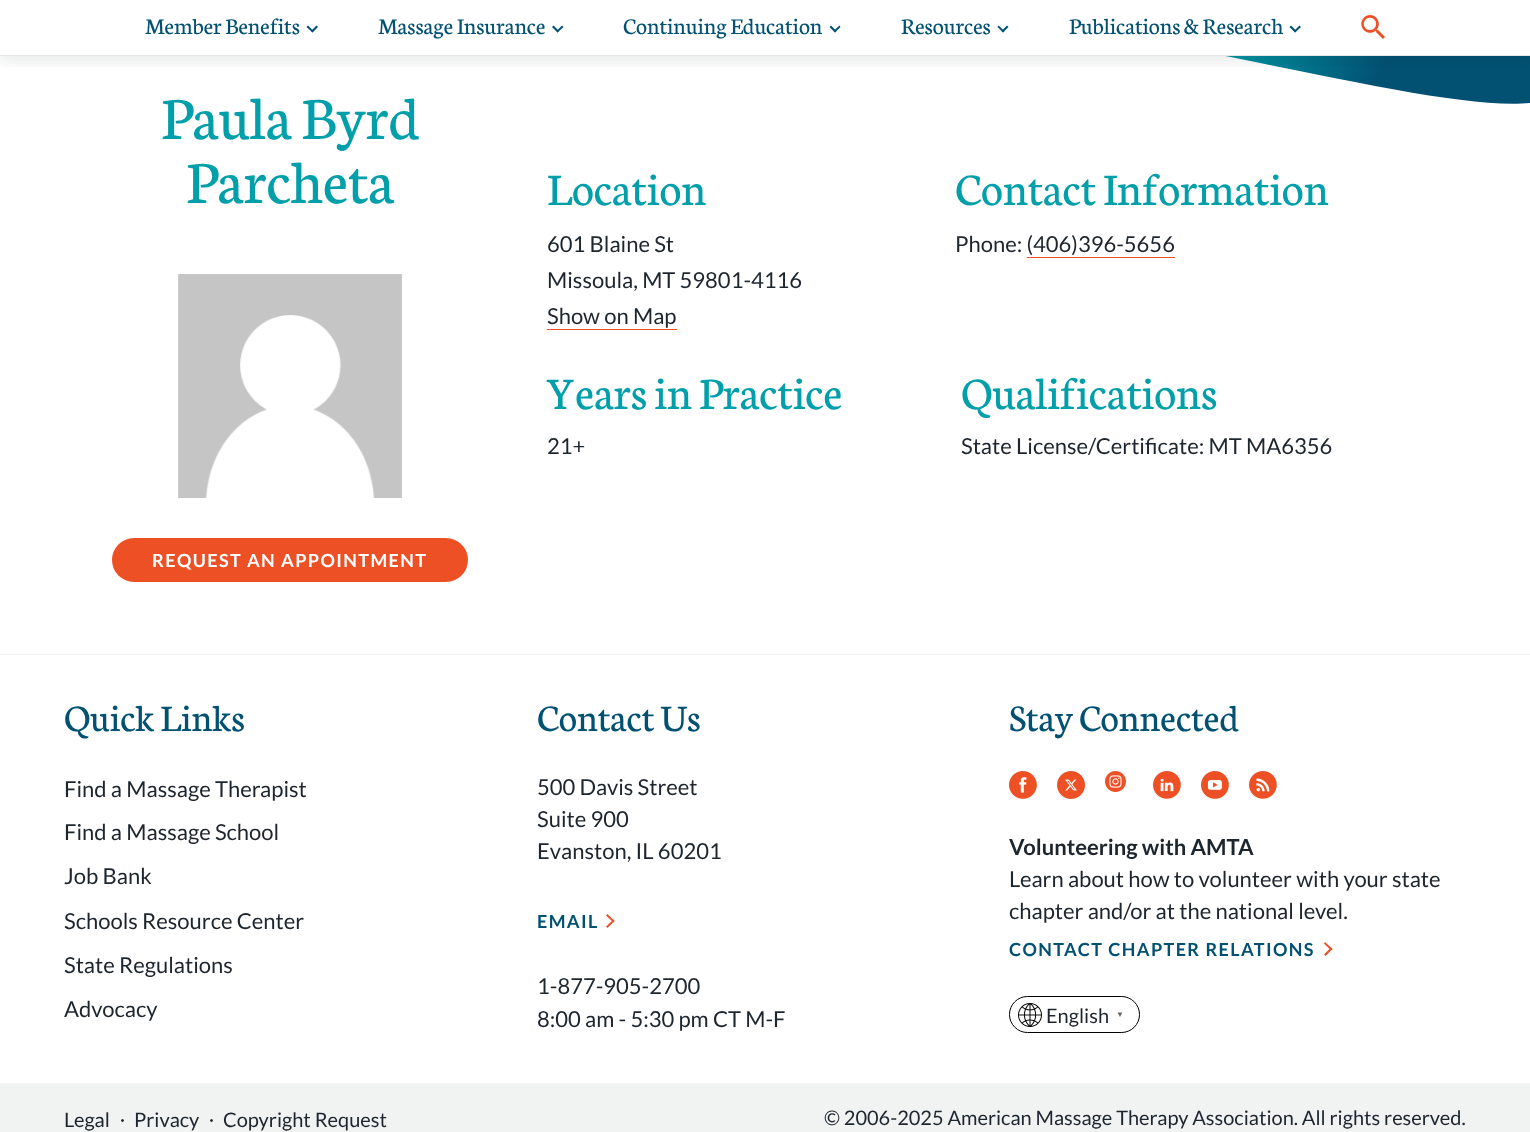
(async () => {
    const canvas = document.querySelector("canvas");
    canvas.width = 1530;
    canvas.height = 1132;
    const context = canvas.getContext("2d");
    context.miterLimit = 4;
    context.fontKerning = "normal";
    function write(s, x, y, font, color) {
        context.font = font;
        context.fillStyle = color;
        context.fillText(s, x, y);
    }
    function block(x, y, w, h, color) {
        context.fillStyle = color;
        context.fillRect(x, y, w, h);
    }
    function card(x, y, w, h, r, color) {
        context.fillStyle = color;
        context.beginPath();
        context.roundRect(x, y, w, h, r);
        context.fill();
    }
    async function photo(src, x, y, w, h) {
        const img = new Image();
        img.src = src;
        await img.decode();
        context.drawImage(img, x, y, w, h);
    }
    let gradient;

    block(0, 0, 1530, 1132, "rgb(255, 255, 255)");
    gradient = context.createLinearGradient(1111, 67, 1331, 174);
    gradient.addColorStop(0.29, "rgb(0, 164, 174)");
    gradient.addColorStop(1, "rgb(2, 81, 115)");
    context.fillStyle = gradient;
    context.beginPath();
    context.moveTo(765, -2);
    context.lineTo(1530, 1);
    context.lineTo(1530, 103);
    context.bezierCurveTo(1413, 114, 1071, -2, 765, -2);
    context.closePath();
    context.fill();
    block(836, 0, 694, 55, "rgb(255, 255, 255)");
    context.save();
    context.beginPath();
    context.rect(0, 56, 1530, 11);
    context.clip();
    context.fillStyle = "rgba(29, 37, 46, 0.1)";
    context.filter = "blur(7.5px)";
    context.beginPath();
    context.rect(0, -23, 1530, 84);
    context.fill();
    context.filter = "none";
    context.restore();
    write("Member Benefits", 145, 34, "24px Neuton", "rgb(2, 81, 115)");
    context.beginPath();
    context.moveTo(316.5, 25.5);
    context.lineTo(318, 27);
    context.lineTo(312.5, 32.5);
    context.lineTo(311, 31);
    context.closePath();
    context.fill();
    context.beginPath();
    context.moveTo(308, 25.5);
    context.lineTo(313.5, 31);
    context.lineTo(312.5, 32.5);
    context.lineTo(306.5, 27);
    context.closePath();
    context.fill();
    write("Massage Insurance", 378, 34, "24px Neuton", "rgb(2, 81, 115)");
    context.beginPath();
    context.moveTo(562, 25.5);
    context.lineTo(563.5, 27);
    context.lineTo(557.5, 32.5);
    context.lineTo(556.5, 31);
    context.closePath();
    context.fill();
    context.beginPath();
    context.moveTo(553.5, 25.5);
    context.lineTo(559, 31);
    context.lineTo(557.5, 32.5);
    context.lineTo(552, 27);
    context.closePath();
    context.fill();
    write("Continuing Education", 623, 34, "24px Neuton", "rgb(2, 81, 115)");
    context.beginPath();
    context.moveTo(839.5, 25.5);
    context.lineTo(840.5, 27);
    context.lineTo(835, 32.5);
    context.lineTo(833.5, 31);
    context.closePath();
    context.fill();
    context.beginPath();
    context.moveTo(831, 25.5);
    context.lineTo(836.5, 31);
    context.lineTo(835, 32.5);
    context.lineTo(829.5, 27);
    context.closePath();
    context.fill();
    write("Resources", 901, 34, "24px Neuton", "rgb(2, 81, 115)");
    context.beginPath();
    context.moveTo(1007, 25.5);
    context.lineTo(1008.5, 27);
    context.lineTo(1003, 32.5);
    context.lineTo(1001.5, 31);
    context.closePath();
    context.fill();
    context.beginPath();
    context.moveTo(998.5, 25.5);
    context.lineTo(1004.5, 31);
    context.lineTo(1003, 32.5);
    context.lineTo(997.5, 27);
    context.closePath();
    context.fill();
    write("Publications & Research", 1069, 34, "24px Neuton", "rgb(2, 81, 115)");
    context.beginPath();
    context.moveTo(1299.5, 25.5);
    context.lineTo(1301, 27);
    context.lineTo(1295, 32.5);
    context.lineTo(1294, 31);
    context.closePath();
    context.fill();
    context.beginPath();
    context.moveTo(1291, 25.5);
    context.lineTo(1296.5, 31);
    context.lineTo(1295, 32.5);
    context.lineTo(1289.5, 27);
    context.closePath();
    context.fill();
    block(0, 55, 1530, 1, "rgb(227, 230, 230)");
    await photo("media/1.png", 1361, 15, 24, 24);
    write("Paula Byrd", 161, 139, "64px Neuton", "rgb(0, 159, 169)");
    write("Parcheta", 186, 203, "64px Neuton", "rgb(0, 159, 169)");
    await photo("media/2.png", 178, 274, 224, 224);
    card(112, 538, 356, 44, 22, "rgb(237, 80, 37)");
    context.letterSpacing = "1.4px";
    write("REQUEST AN APPOINTMENT", 152, 567, "bold 18px Lato", "rgb(255, 255, 255)");
    context.letterSpacing = "0px";
    write("Location", 547, 205, "48px Neuton", "rgb(0, 159, 169)");
    write("601 Blaine St", 547, 252, "22px Lato", "rgb(29, 37, 46)");
    write("Missoula, MT 59801-4116", 547, 288, "22px Lato", "rgb(29, 37, 46)");
    write("Show on Map", 547, 324, "22px Lato", "rgb(29, 37, 46)");
    block(547, 329, 130, 1, "rgb(237, 80, 37)");
    write("Contact Information", 955, 205, "48px Neuton", "rgb(0, 159, 169)");
    write("Phone: (406)396-5656", 955, 252, "22px Lato", "rgb(29, 37, 46)");
    block(1027, 257, 148, 1, "rgb(237, 80, 37)");
    write("Years in Practice", 547, 409, "48px Neuton", "rgb(0, 159, 169)");
    write("21+", 547, 454, "22px Lato", "rgb(29, 37, 46)");
    write("Qualifications", 961, 409, "48px Neuton", "rgb(0, 159, 169)");
    write("State License/Certificate: MT MA6356", 961, 454, "22px Lato", "rgb(29, 37, 46)");
    block(0, 654, 1530, 1, "rgb(241, 243, 243)");
    write("Quick Links", 64, 731, "40px Neuton", "rgb(2, 81, 115)");
    write("Find a Massage Therapist", 64, 797, "22px Lato", "rgb(29, 37, 46)");
    write("Find a Massage School", 64, 840, "22px Lato", "rgb(29, 37, 46)");
    write("Job Bank", 64, 884, "22px Lato", "rgb(29, 37, 46)");
    write("Schools Resource Center", 64, 929, "22px Lato", "rgb(29, 37, 46)");
    write("State Regulations", 64, 973, "22px Lato", "rgb(29, 37, 46)");
    write("Advocacy", 64, 1017, "22px Lato", "rgb(29, 37, 46)");
    write("Contact Us", 537, 731, "40px Neuton", "rgb(2, 81, 115)");
    write("500 Davis Street", 537, 795, "22px Lato", "rgb(29, 37, 46)");
    write("Suite 900", 537, 827, "22px Lato", "rgb(29, 37, 46)");
    write("Evanston, IL 60201", 537, 859, "22px Lato", "rgb(29, 37, 46)");
    context.letterSpacing = "1.4px";
    write("EMAIL", 537, 928, "bold 18px Lato", "rgb(2, 81, 115)");
    context.fillStyle = "rgb(237, 80, 37)";
    context.beginPath();
    context.moveTo(606, 915.5);
    context.lineTo(607.5, 914);
    context.lineTo(614.5, 921);
    context.lineTo(613.5, 922.5);
    context.closePath();
    context.fill();
    context.beginPath();
    context.moveTo(606, 926.5);
    context.lineTo(613.5, 919.5);
    context.lineTo(614.5, 921);
    context.lineTo(607.5, 928);
    context.closePath();
    context.fill();
    context.letterSpacing = "0px";
    write("1-877-905-2700", 537, 994, "22px Lato", "rgb(29, 37, 46)");
    write("8:00 am - 5:30 pm CT M-F", 537, 1027, "22px Lato", "rgb(29, 37, 46)");
    write("Stay Connected", 1009, 731, "40px Neuton", "rgb(2, 81, 115)");
    await photo("media/3.png", 1009, 771, 28, 28);
    await photo("media/4.png", 1057, 771, 28, 28);
    await photo("media/5.png", 1105, 771, 21, 21);
    await photo("media/6.png", 1153, 771, 28, 28);
    await photo("media/7.png", 1201, 771, 28, 28);
    await photo("media/8.png", 1249, 771, 28, 28);
    write("Volunteering with AMTA", 1009, 855, "bold 22px Lato", "rgb(29, 37, 46)");
    write("Learn about how to volunteer with your state", 1009, 887, "22px Lato", "rgb(29, 37, 46)");
    write("chapter and/or at the national level.", 1009, 919, "22px Lato", "rgb(29, 37, 46)");
    context.letterSpacing = "1.4px";
    write("CONTACT CHAPTER RELATIONS", 1009, 956, "bold 18px Lato", "rgb(2, 81, 115)");
    context.fillStyle = "rgb(237, 80, 37)";
    context.beginPath();
    context.moveTo(1324, 943.5);
    context.lineTo(1325, 942);
    context.lineTo(1332.5, 949);
    context.lineTo(1331, 950.5);
    context.closePath();
    context.fill();
    context.beginPath();
    context.moveTo(1324, 954.5);
    context.lineTo(1331, 947.5);
    context.lineTo(1332.5, 949);
    context.lineTo(1325.5, 956);
    context.closePath();
    context.fill();
    context.beginPath();
    context.roundRect(1009.5, 996.5, 130, 36, 18);
    context.strokeStyle = "rgb(0, 0, 0)";
    context.stroke();
    await photo("media/9.png", 1018, 1003, 24, 24);
    context.letterSpacing = "0px";
    write("English", 1046, 1023, "20px Lato", "rgb(29, 37, 46)");
    write("▼", 1116, 1017, "bold 8px Liberation Sans", "rgb(102, 102, 102)");
    block(0, 1083, 1530, 49, "rgb(241, 243, 243)");
    write("Legal", 64, 1127, "20px Lato", "rgb(29, 37, 46)");
    context.beginPath();
    context.arc(122.5, 1120.5, 1, 0, Math.PI * 2);
    context.fill();
    context.strokeStyle = "rgb(29, 37, 46)";
    context.stroke();
    write("Privacy", 134, 1127, "20px Lato", "rgb(29, 37, 46)");
    context.beginPath();
    context.arc(211.5, 1120.5, 1, 0, Math.PI * 2);
    context.fill();
    context.stroke();
    write("Copyright Request", 223, 1127, "20px Lato", "rgb(29, 37, 46)");
    write("© 2006-2025 American Massage Therapy Association. All rights reserved.", 824, 1125, "20px Lato", "rgb(29, 37, 46)");
})();
